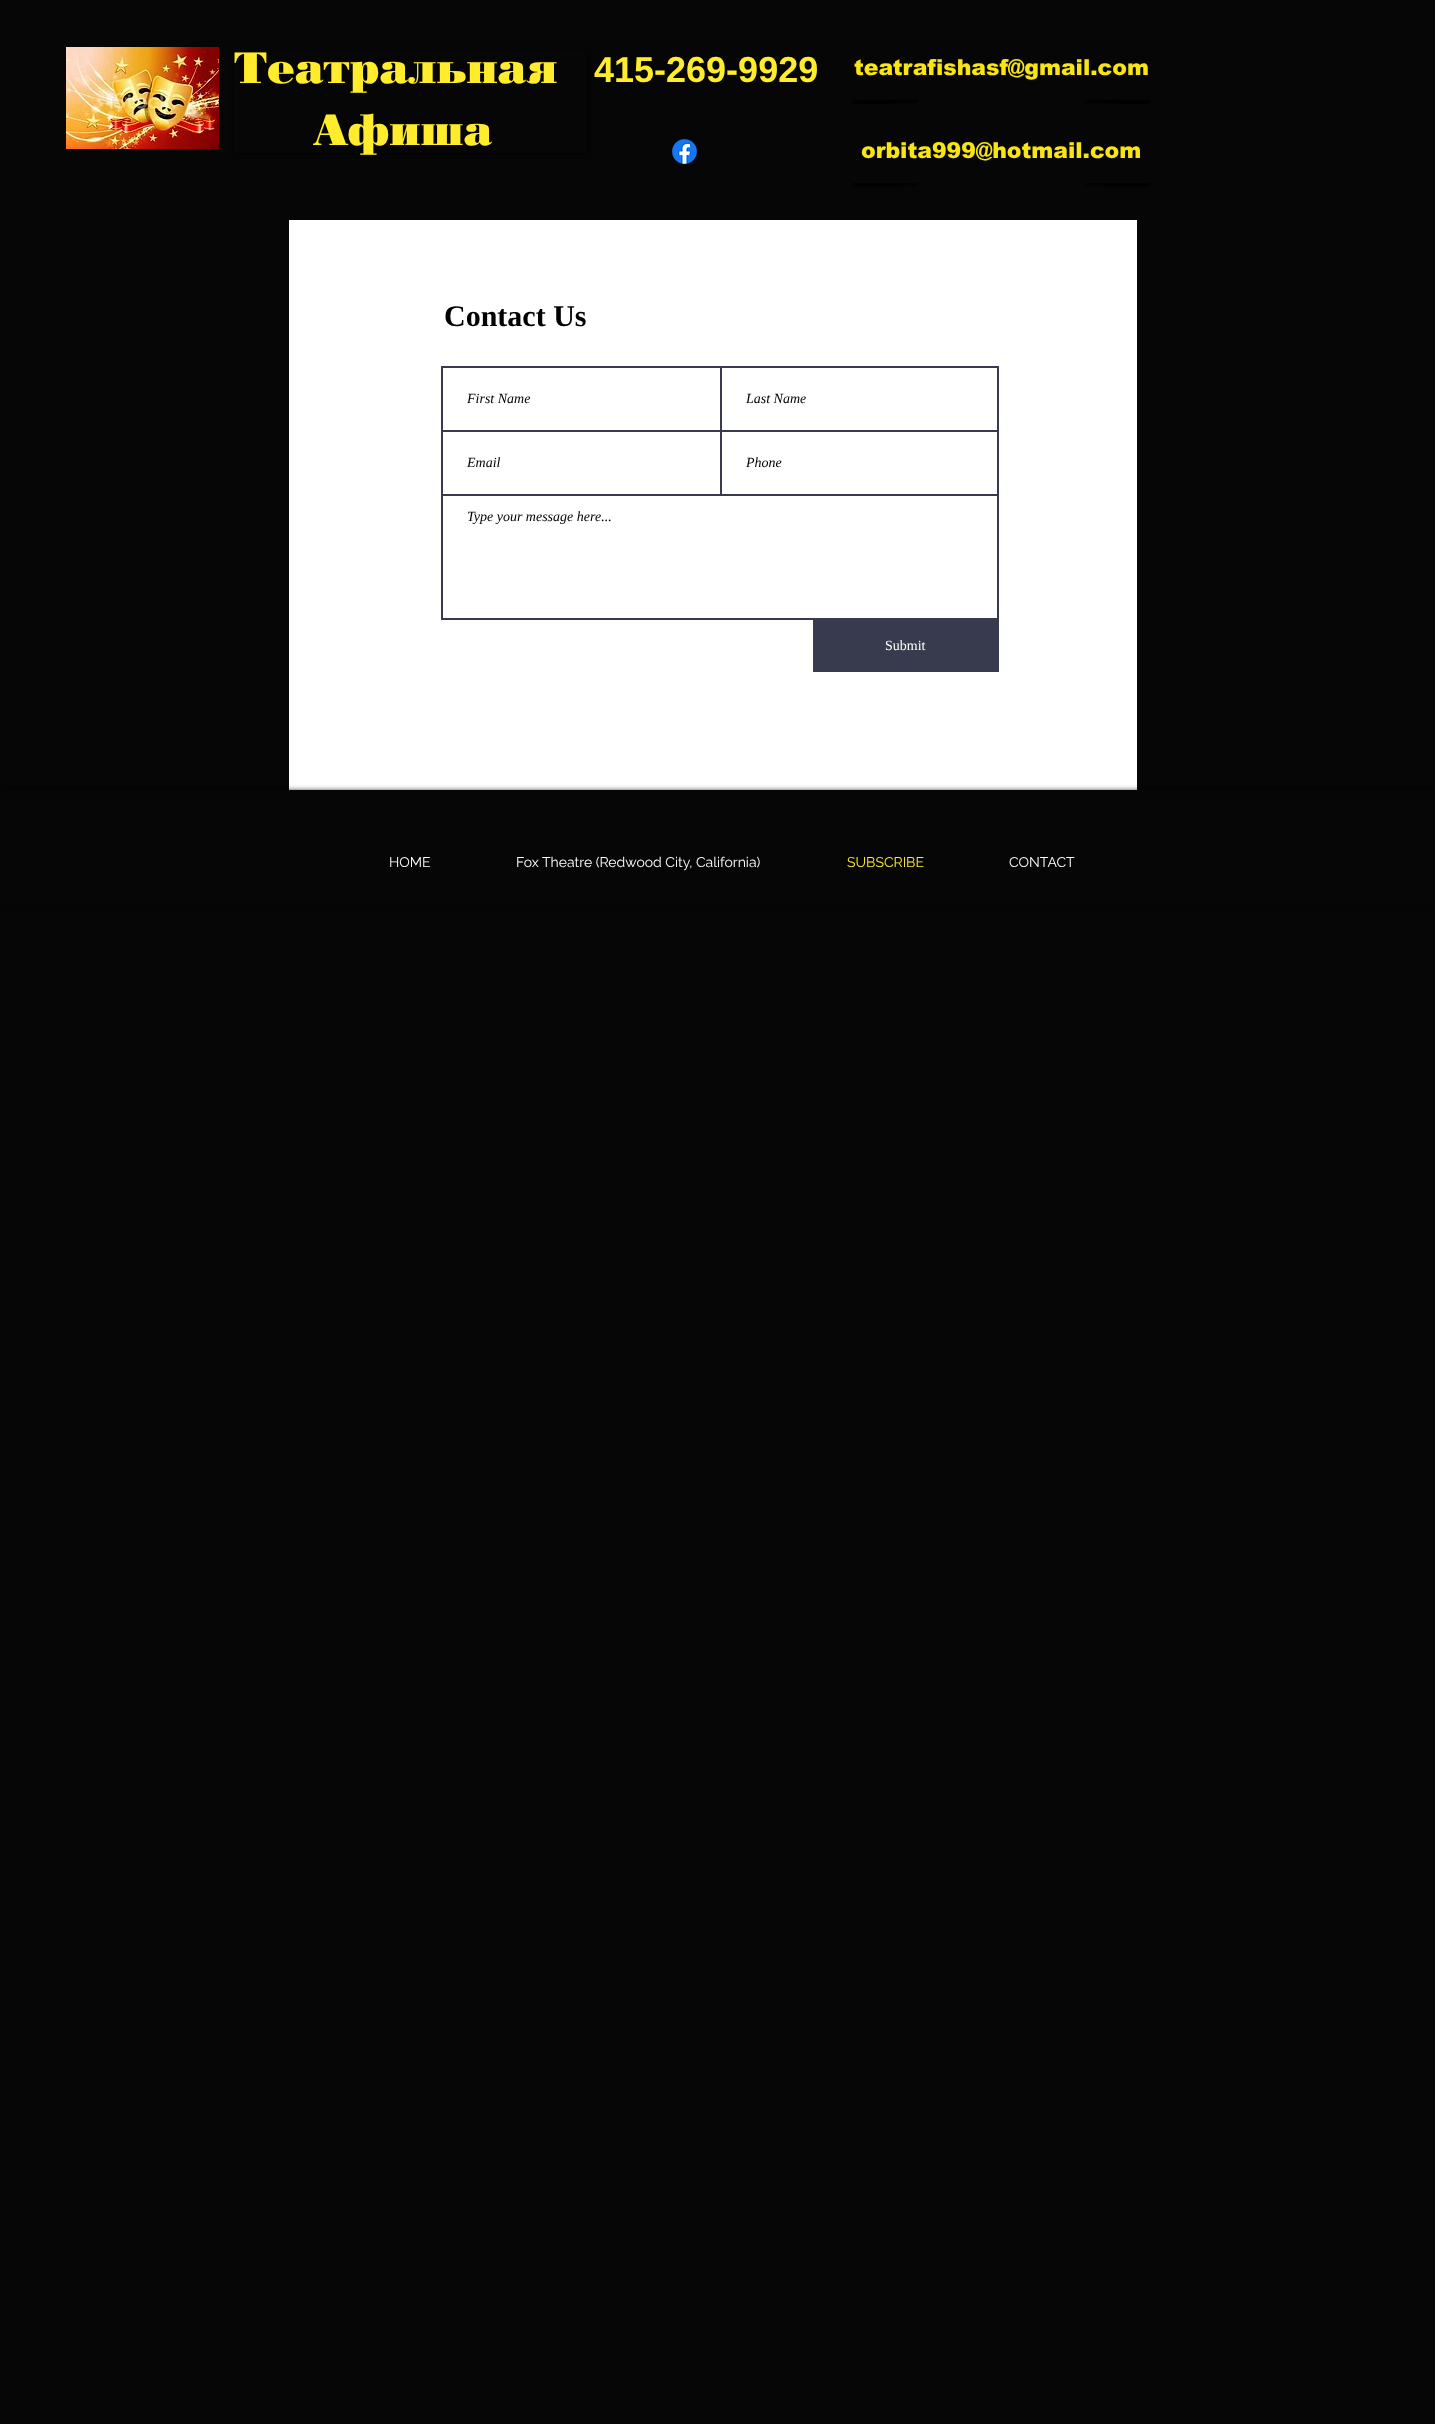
(async () => {
    const canvas = document.querySelector("canvas");
    canvas.width = 1435;
    canvas.height = 2424;
    const context = canvas.getContext("2d");
    context.miterLimit = 4;
    context.fontKerning = "normal";
    function write(s, x, y, font, color) {
        context.font = font;
        context.fillStyle = color;
        context.fillText(s, x, y);
    }
    function block(x, y, w, h, color) {
        context.fillStyle = color;
        context.fillRect(x, y, w, h);
    }
    async function photo(src, x, y, w, h) {
        const img = new Image();
        img.src = src;
        await img.decode();
        context.drawImage(img, x, y, w, h);
    }

    block(0, 0, 1435, 2424, "rgb(6, 6, 6)");
    await photo("media/1.png", 66, 47, 153, 102);
    context.save();
    context.beginPath();
    context.moveTo(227, 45);
    context.lineTo(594, 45);
    context.lineTo(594, 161);
    context.lineTo(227, 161);
    context.closePath();
    context.moveTo(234, 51);
    context.lineTo(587, 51);
    context.lineTo(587, 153);
    context.lineTo(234, 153);
    context.closePath();
    context.clip("evenodd");
    context.fillStyle = "rgba(0, 0, 0, 0.6)";
    context.filter = "blur(2px)";
    context.beginPath();
    context.rect(234, 52, 353, 102);
    context.fill();
    context.filter = "none";
    context.restore();
    write("Театральная", 234, 83, "44px 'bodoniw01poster'", "rgb(255, 237, 45)");
    write("Афиша", 314, 145, "44px 'bodoniw01poster'", "rgb(255, 237, 45)");
    write("415-269-9929", 594, 82, "bold 36px Liberation Sans", "rgb(255, 237, 45)");
    write("teatrafishasf@gmail.com", 854, 75, "900 22px arial", "rgb(249, 229, 19)");
    await photo("media/2.png", 852, 100, 66, 4);
    await photo("media/3.png", 1085, 100, 66, 4);
    await photo("media/4.png", 671, 139, 26, 26);
    write("orbita999@hotmail.com", 861, 158, "900 22px arial", "rgb(249, 229, 19)");
    await photo("media/2.png", 852, 183, 66, 4);
    await photo("media/3.png", 1085, 183, 66, 4);
    block(289, 220, 848, 570, "rgb(255, 255, 255)");
    write("Contact Us", 444, 326, "bold 30px Liberation Serif", "rgb(0, 0, 0)");
    context.strokeStyle = "rgb(55, 59, 77)";
    context.lineWidth = 2;
    context.strokeRect(442, 367, 279, 64);
    write("First Name", 467, 403, "italic 14px Liberation Serif", "rgb(0, 0, 0)");
    context.strokeRect(721, 367, 277, 64);
    write("Last Name", 746, 403, "italic 14px Liberation Serif", "rgb(0, 0, 0)");
    context.strokeRect(442, 431, 279, 64);
    write("Email", 467, 467, "italic 14px Liberation Serif", "rgb(0, 0, 0)");
    context.strokeRect(721, 431, 277, 64);
    write("Phone", 746, 467, "italic 14px Liberation Serif", "rgb(0, 0, 0)");
    context.strokeRect(442, 495, 556, 124);
    write("Type your message here...", 467, 521, "italic 14px Liberation Serif", "rgb(0, 0, 0)");
    block(813, 620, 186, 52, "rgb(55, 59, 77)");
    write("Submit", 885, 650, "14px Liberation Serif", "rgb(255, 255, 255)");
    context.save();
    context.beginPath();
    context.moveTo(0, 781);
    context.lineTo(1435, 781);
    context.lineTo(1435, 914);
    context.lineTo(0, 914);
    context.closePath();
    context.moveTo(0, 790);
    context.lineTo(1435, 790);
    context.lineTo(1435, 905);
    context.lineTo(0, 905);
    context.closePath();
    context.clip("evenodd");
    context.fillStyle = "rgba(0, 0, 0, 0.7)";
    context.filter = "blur(2.5px)";
    context.beginPath();
    context.rect(0, 790, 1435, 115);
    context.fill();
    context.filter = "none";
    context.restore();
    write("HOME", 389, 867, "14px Raleway", "rgb(255, 255, 255)");
    write("Fox Theatre (Redwood City, California)", 516, 867, "14px Raleway", "rgb(255, 255, 255)");
    write("SUBSCRIBE", 847, 867, "14px Raleway", "rgb(255, 237, 45)");
    write("CONTACT", 1009, 867, "14px Raleway", "rgb(255, 255, 255)");
})();
